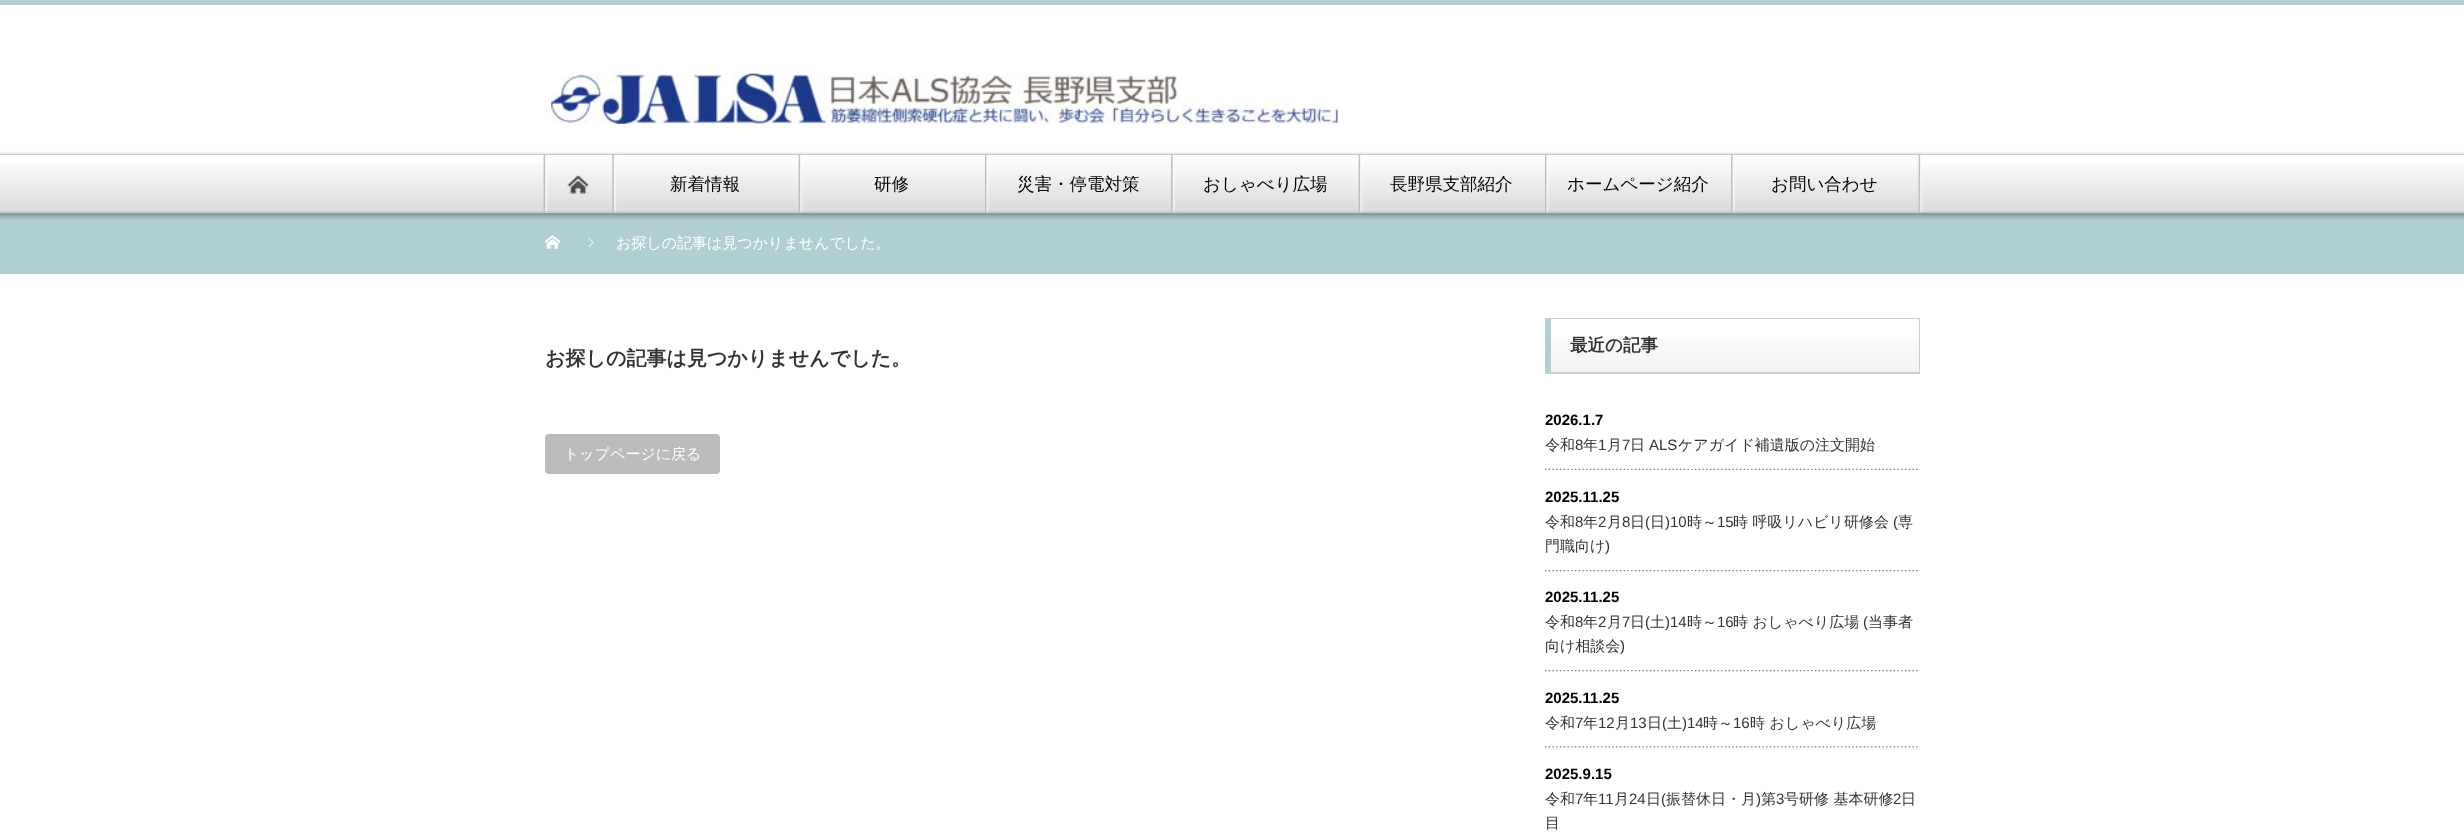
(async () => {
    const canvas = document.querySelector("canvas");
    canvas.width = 2464;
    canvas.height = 835;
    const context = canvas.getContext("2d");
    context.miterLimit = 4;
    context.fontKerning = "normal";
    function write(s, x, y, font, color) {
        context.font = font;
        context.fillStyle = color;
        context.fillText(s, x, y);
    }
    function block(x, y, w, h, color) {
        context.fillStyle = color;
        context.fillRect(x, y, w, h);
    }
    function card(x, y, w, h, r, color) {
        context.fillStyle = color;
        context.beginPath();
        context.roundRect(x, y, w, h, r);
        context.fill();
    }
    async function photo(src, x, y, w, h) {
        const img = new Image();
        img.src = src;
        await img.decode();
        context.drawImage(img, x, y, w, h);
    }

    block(0, 0, 2464, 835, "rgb(255, 255, 255)");
    await photo("media/1.png", 0, 163, 2464, 50);
    block(0, 0, 2464, 5, "rgb(176, 207, 210)");
    await photo("media/2.png", 0, 151, 2464, 4);
    await photo("media/3.png", 551, 73, 787, 51);
    block(0, 213, 2464, 61, "rgb(176, 207, 210)");
    await photo("media/18.png", 0, 212, 2464, 8);
    await photo("media/4.png", 543, 155, 70, 58);
    await photo("media/5.png", 543, 155, 70, 58);
    await photo("media/6.png", 567, 175, 22, 19);
    await photo("media/7.png", 1918, 155, 5, 58);
    await photo("media/8.png", 612, 155, 187, 58);
    await photo("media/9.png", 612, 155, 187, 57);
    write("新着情報", 670, 190, "500 17.5px WenQuanYi Zen Hei", "rgb(0, 0, 0)");
    await photo("media/10.png", 798, 155, 187, 58);
    await photo("media/11.png", 800, 155, 185, 57);
    write("研修", 874, 190, "500 17.5px WenQuanYi Zen Hei", "rgb(0, 0, 0)");
    await photo("media/12.png", 985, 155, 187, 58);
    await photo("media/13.png", 986, 155, 185, 57);
    write("災害・停電対策", 1017, 190, "500 17.5px WenQuanYi Zen Hei", "rgb(0, 0, 0)");
    await photo("media/14.png", 1171, 155, 188, 58);
    await photo("media/15.png", 1171, 155, 188, 57);
    write("おしゃべり広場", 1203, 190, "500 17.5px WenQuanYi Zen Hei", "rgb(0, 0, 0)");
    await photo("media/10.png", 1358, 155, 187, 58);
    await photo("media/11.png", 1360, 155, 185, 57);
    write("長野県支部紹介", 1390, 190, "500 17.5px WenQuanYi Zen Hei", "rgb(0, 0, 0)");
    await photo("media/12.png", 1545, 155, 187, 58);
    await photo("media/13.png", 1546, 155, 185, 57);
    write("ホームページ紹介", 1567, 190, "500 17.5px WenQuanYi Zen Hei", "rgb(0, 0, 0)");
    await photo("media/16.png", 1731, 155, 187, 58);
    await photo("media/17.png", 1731, 155, 186, 57);
    write("お問い合わせ", 1771, 190, "500 17.5px WenQuanYi Zen Hei", "rgb(0, 0, 0)");
    await photo("media/19.png", 545, 235, 15, 14);
    await photo("media/20.png", 588, 237, 6, 11);
    write("お探しの記事は見つかりませんでした。", 616, 248, "500 15px WenQuanYi Zen Hei", "rgb(255, 255, 255)");
    write("お探しの記事は見つかりませんでした。", 545, 365, "bold 20px WenQuanYi Zen Hei", "rgb(51, 51, 51)");
    card(545, 434, 175, 40, 4, "rgb(187, 187, 187)");
    write("トップページに戻る", 564, 459, "500 15px WenQuanYi Zen Hei", "rgb(255, 255, 255)");
    await photo("media/21.png", 1548, 338, 371, 35);
    context.fillStyle = "rgb(204, 204, 204)";
    context.beginPath();
    context.moveTo(1545, 318);
    context.lineTo(1920, 318);
    context.lineTo(1919, 319);
    context.lineTo(1551, 319);
    context.closePath();
    context.fill();
    block(1919, 318, 1, 56, "rgb(204, 204, 204)");
    context.beginPath();
    context.moveTo(1920, 374);
    context.lineTo(1545, 374);
    context.lineTo(1551, 372);
    context.lineTo(1919, 372);
    context.closePath();
    context.fill();
    context.fillStyle = "rgb(176, 207, 210)";
    context.beginPath();
    context.moveTo(1545, 374);
    context.lineTo(1545, 318);
    context.lineTo(1551, 319);
    context.lineTo(1551, 372);
    context.closePath();
    context.fill();
    write("最近の記事", 1570, 351, "bold 17.5px WenQuanYi Zen Hei", "rgb(51, 51, 51)");
    await photo("media/22.png", 1545, 468, 375, 2);
    write("2026.1.7", 1545, 425, "bold 15px Liberation Sans", "rgb(0, 0, 0)");
    write("令和", 1545, 450, "500 15px WenQuanYi Zen Hei", "rgb(51, 51, 51)");
    write("8", 1575, 450, "15px Liberation Sans", "rgb(51, 51, 51)");
    write("年", 1583, 450, "500 15px WenQuanYi Zen Hei", "rgb(51, 51, 51)");
    write("1", 1598, 450, "15px Liberation Sans", "rgb(51, 51, 51)");
    write("月", 1607, 450, "500 15px WenQuanYi Zen Hei", "rgb(51, 51, 51)");
    write("7", 1622, 450, "15px Liberation Sans", "rgb(51, 51, 51)");
    write("日", 1630, 450, "500 15px WenQuanYi Zen Hei", "rgb(51, 51, 51)");
    write("ALS", 1649, 450, "15px Liberation Sans", "rgb(51, 51, 51)");
    write("ケアガイド補遺版の注文開始", 1678, 450, "500 15px WenQuanYi Zen Hei", "rgb(51, 51, 51)");
    await photo("media/23.png", 1545, 570, 375, 2);
    write("2025.11.25", 1545, 502, "bold 15px Liberation Sans", "rgb(0, 0, 0)");
    write("令和", 1545, 527, "500 15px WenQuanYi Zen Hei", "rgb(51, 51, 51)");
    write("8", 1575, 527, "15px Liberation Sans", "rgb(51, 51, 51)");
    write("年", 1583, 527, "500 15px WenQuanYi Zen Hei", "rgb(51, 51, 51)");
    write("2", 1598, 527, "15px Liberation Sans", "rgb(51, 51, 51)");
    write("月", 1607, 527, "500 15px WenQuanYi Zen Hei", "rgb(51, 51, 51)");
    write("8", 1622, 527, "15px Liberation Sans", "rgb(51, 51, 51)");
    write("日", 1630, 527, "500 15px WenQuanYi Zen Hei", "rgb(51, 51, 51)");
    write("(", 1645, 527, "15px Liberation Sans", "rgb(51, 51, 51)");
    write("日", 1650, 527, "500 15px WenQuanYi Zen Hei", "rgb(51, 51, 51)");
    write(")10", 1665, 527, "15px Liberation Sans", "rgb(51, 51, 51)");
    write("時～", 1687, 527, "500 15px WenQuanYi Zen Hei", "rgb(51, 51, 51)");
    write("15", 1717, 527, "15px Liberation Sans", "rgb(51, 51, 51)");
    write("時 呼吸リハビリ研修会", 1733, 527, "500 15px WenQuanYi Zen Hei", "rgb(51, 51, 51)");
    write("(", 1893, 527, "15px Liberation Sans", "rgb(51, 51, 51)");
    write("専", 1898, 527, "500 15px WenQuanYi Zen Hei", "rgb(51, 51, 51)");
    write("門職向け", 1545, 551, "500 15px WenQuanYi Zen Hei", "rgb(51, 51, 51)");
    write(")", 1605, 551, "15px Liberation Sans", "rgb(51, 51, 51)");
    await photo("media/23.png", 1545, 670, 375, 2);
    write("2025.11.25", 1545, 602, "bold 15px Liberation Sans", "rgb(0, 0, 0)");
    write("令和", 1545, 627, "500 15px WenQuanYi Zen Hei", "rgb(51, 51, 51)");
    write("8", 1575, 627, "15px Liberation Sans", "rgb(51, 51, 51)");
    write("年", 1583, 627, "500 15px WenQuanYi Zen Hei", "rgb(51, 51, 51)");
    write("2", 1598, 627, "15px Liberation Sans", "rgb(51, 51, 51)");
    write("月", 1607, 627, "500 15px WenQuanYi Zen Hei", "rgb(51, 51, 51)");
    write("7", 1622, 627, "15px Liberation Sans", "rgb(51, 51, 51)");
    write("日", 1630, 627, "500 15px WenQuanYi Zen Hei", "rgb(51, 51, 51)");
    write("(", 1645, 627, "15px Liberation Sans", "rgb(51, 51, 51)");
    write("土", 1650, 627, "500 15px WenQuanYi Zen Hei", "rgb(51, 51, 51)");
    write(")14", 1665, 627, "15px Liberation Sans", "rgb(51, 51, 51)");
    write("時～", 1687, 627, "500 15px WenQuanYi Zen Hei", "rgb(51, 51, 51)");
    write("16", 1717, 627, "15px Liberation Sans", "rgb(51, 51, 51)");
    write("時 おしゃべり広場", 1733, 627, "500 15px WenQuanYi Zen Hei", "rgb(51, 51, 51)");
    write("(", 1863, 627, "15px Liberation Sans", "rgb(51, 51, 51)");
    write("当事者", 1868, 627, "500 15px WenQuanYi Zen Hei", "rgb(51, 51, 51)");
    write("向け相談会", 1545, 651, "500 15px WenQuanYi Zen Hei", "rgb(51, 51, 51)");
    write(")", 1620, 651, "15px Liberation Sans", "rgb(51, 51, 51)");
    await photo("media/24.png", 1545, 746, 375, 2);
    write("2025.11.25", 1545, 703, "bold 15px Liberation Sans", "rgb(0, 0, 0)");
    write("令和", 1545, 728, "500 15px WenQuanYi Zen Hei", "rgb(51, 51, 51)");
    write("7", 1575, 728, "15px Liberation Sans", "rgb(51, 51, 51)");
    write("年", 1583, 728, "500 15px WenQuanYi Zen Hei", "rgb(51, 51, 51)");
    write("12", 1598, 728, "15px Liberation Sans", "rgb(51, 51, 51)");
    write("月", 1615, 728, "500 15px WenQuanYi Zen Hei", "rgb(51, 51, 51)");
    write("13", 1630, 728, "15px Liberation Sans", "rgb(51, 51, 51)");
    write("日", 1647, 728, "500 15px WenQuanYi Zen Hei", "rgb(51, 51, 51)");
    write("(", 1662, 728, "15px Liberation Sans", "rgb(51, 51, 51)");
    write("土", 1667, 728, "500 15px WenQuanYi Zen Hei", "rgb(51, 51, 51)");
    write(")14", 1682, 728, "15px Liberation Sans", "rgb(51, 51, 51)");
    write("時～", 1703, 728, "500 15px WenQuanYi Zen Hei", "rgb(51, 51, 51)");
    write("16", 1733, 728, "15px Liberation Sans", "rgb(51, 51, 51)");
    write("時 おしゃべり広場", 1750, 728, "500 15px WenQuanYi Zen Hei", "rgb(51, 51, 51)");
    write("2025.9.15", 1545, 779, "bold 15px Liberation Sans", "rgb(0, 0, 0)");
    write("令和", 1545, 804, "500 15px WenQuanYi Zen Hei", "rgb(51, 51, 51)");
    write("7", 1575, 804, "15px Liberation Sans", "rgb(51, 51, 51)");
    write("年", 1583, 804, "500 15px WenQuanYi Zen Hei", "rgb(51, 51, 51)");
    write("11", 1598, 804, "15px Liberation Sans", "rgb(51, 51, 51)");
    write("月", 1614, 804, "500 15px WenQuanYi Zen Hei", "rgb(51, 51, 51)");
    write("24", 1629, 804, "15px Liberation Sans", "rgb(51, 51, 51)");
    write("日", 1646, 804, "500 15px WenQuanYi Zen Hei", "rgb(51, 51, 51)");
    write("(", 1661, 804, "15px Liberation Sans", "rgb(51, 51, 51)");
    write("振替休日・月", 1666, 804, "500 15px WenQuanYi Zen Hei", "rgb(51, 51, 51)");
    write(")", 1756, 804, "15px Liberation Sans", "rgb(51, 51, 51)");
    write("第", 1761, 804, "500 15px WenQuanYi Zen Hei", "rgb(51, 51, 51)");
    write("3", 1776, 804, "15px Liberation Sans", "rgb(51, 51, 51)");
    write("号研修 基本研修", 1784, 804, "500 15px WenQuanYi Zen Hei", "rgb(51, 51, 51)");
    write("2", 1893, 804, "15px Liberation Sans", "rgb(51, 51, 51)");
    write("日", 1901, 804, "500 15px WenQuanYi Zen Hei", "rgb(51, 51, 51)");
    write("目", 1545, 828, "500 15px WenQuanYi Zen Hei", "rgb(51, 51, 51)");
})();
